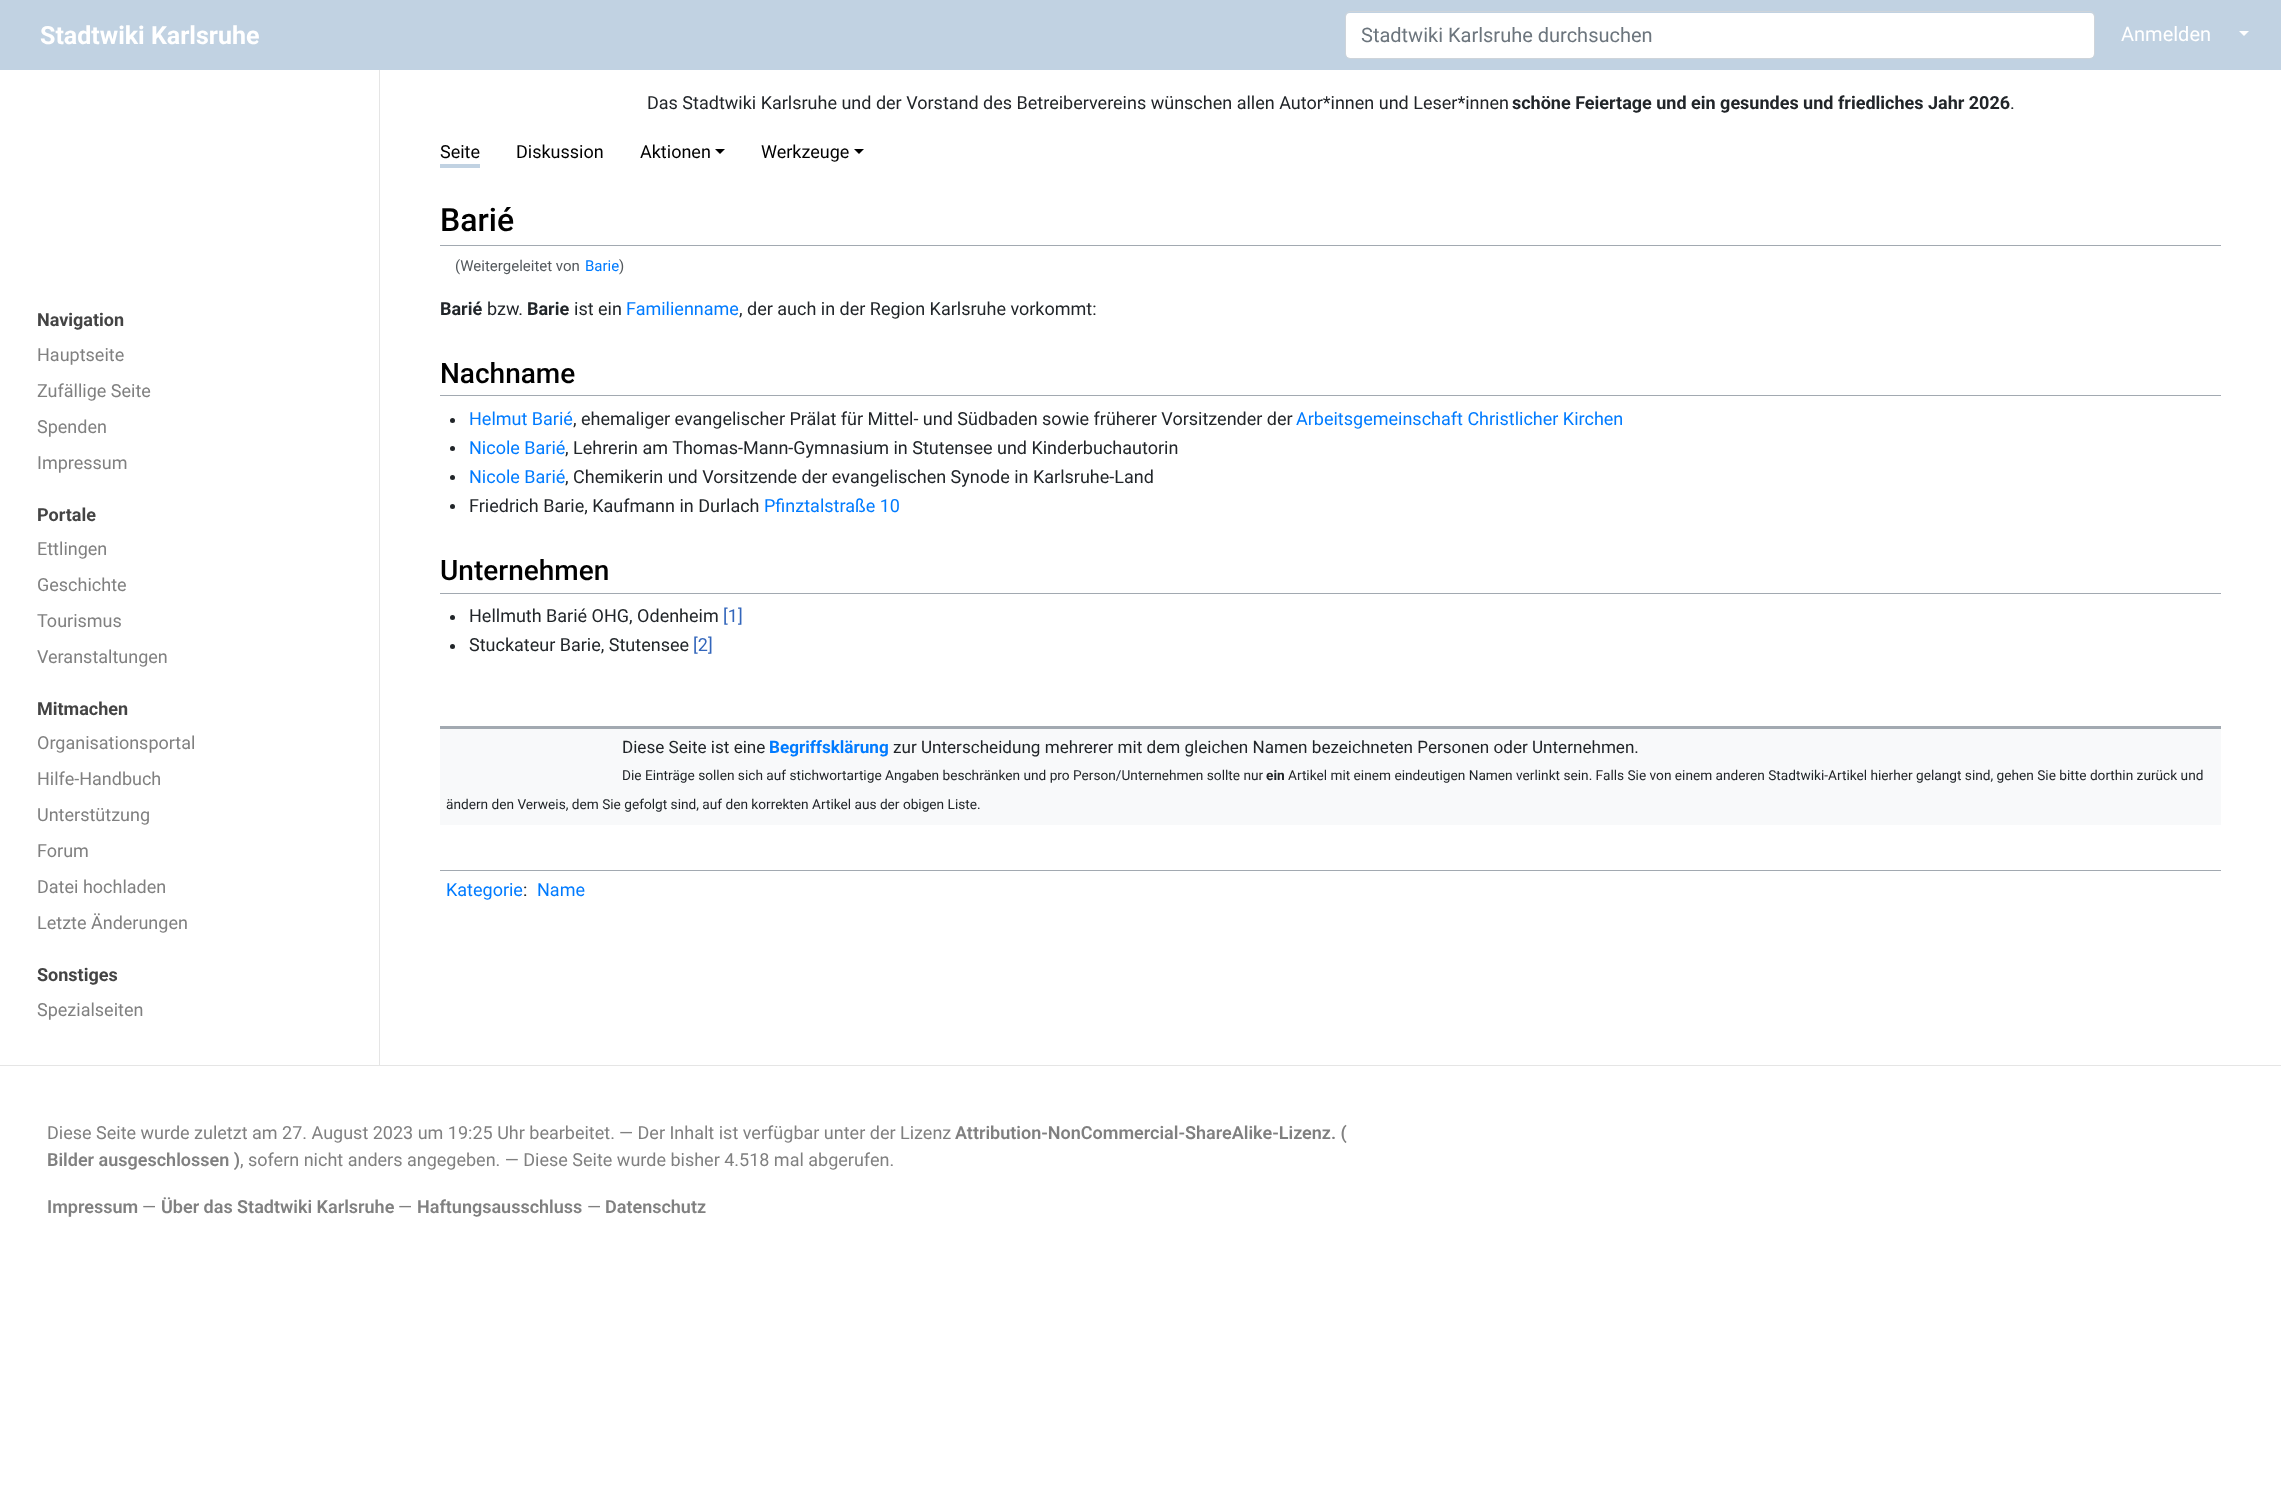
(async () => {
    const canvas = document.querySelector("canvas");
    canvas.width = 2281;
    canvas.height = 1512;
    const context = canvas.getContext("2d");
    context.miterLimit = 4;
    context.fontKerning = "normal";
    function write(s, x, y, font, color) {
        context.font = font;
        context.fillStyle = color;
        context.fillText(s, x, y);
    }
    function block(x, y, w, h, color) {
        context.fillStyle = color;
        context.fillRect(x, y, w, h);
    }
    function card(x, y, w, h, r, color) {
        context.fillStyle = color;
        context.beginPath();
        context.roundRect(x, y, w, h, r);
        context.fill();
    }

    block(0, 0, 2281, 1512, "rgb(255, 255, 255)");
    block(0, 0, 2281, 70, "rgb(193, 210, 226)");
    write("Stadtwiki Karlsruhe", 40, 44, "bold 25px Roboto", "rgb(255, 255, 255)");
    card(1346, 13, 748, 45, 4, "rgb(255, 255, 255)");
    context.beginPath();
    context.roundRect(1345.5, 11.5, 749, 47, 4.5);
    context.strokeStyle = "rgb(206, 212, 218)";
    context.stroke();
    write("Stadtwiki Karlsruhe durchsuchen", 1361, 42, "20px Roboto", "rgb(108, 117, 125)");
    write("Anmelden", 2121, 41, "20px Roboto", "rgb(255, 255, 255)");
    context.beginPath();
    context.moveTo(2239, 31);
    context.lineTo(2249, 31);
    context.lineTo(2244, 36);
    context.closePath();
    context.fill();
    block(379, 70, 1, 995, "rgb(229, 229, 229)");
    write("Navigation", 37, 326, "bold 18px Roboto", "rgb(68, 68, 68)");
    write("Hauptseite", 37, 361, "18px Roboto", "rgb(128, 128, 128)");
    write("Zufällige Seite", 37, 397, "18px Roboto", "rgb(128, 128, 128)");
    write("Spenden", 37, 433, "18px Roboto", "rgb(128, 128, 128)");
    write("Impressum", 37, 469, "18px Roboto", "rgb(128, 128, 128)");
    write("Portale", 37, 521, "bold 18px Roboto", "rgb(68, 68, 68)");
    write("Ettlingen", 37, 555, "18px Roboto", "rgb(128, 128, 128)");
    write("Geschichte", 37, 591, "18px Roboto", "rgb(128, 128, 128)");
    write("Tourismus", 37, 627, "18px Roboto", "rgb(128, 128, 128)");
    write("Veranstaltungen", 37, 663, "18px Roboto", "rgb(128, 128, 128)");
    write("Mitmachen", 37, 715, "bold 18px Roboto", "rgb(68, 68, 68)");
    write("Organisationsportal", 37, 749, "18px Roboto", "rgb(128, 128, 128)");
    write("Hilfe-Handbuch", 37, 785, "18px Roboto", "rgb(128, 128, 128)");
    write("Unterstützung", 37, 821, "18px Roboto", "rgb(128, 128, 128)");
    write("Forum", 37, 857, "18px Roboto", "rgb(128, 128, 128)");
    write("Datei hochladen", 37, 893, "18px Roboto", "rgb(128, 128, 128)");
    write("Letzte Änderungen", 37, 929, "18px Roboto", "rgb(128, 128, 128)");
    write("Sonstiges", 37, 981, "bold 18px Roboto", "rgb(68, 68, 68)");
    write("Spezialseiten", 37, 1016, "18px Roboto", "rgb(128, 128, 128)");
    write("Das Stadtwiki Karlsruhe und der Vorstand des Betreibervereins wünschen allen Autor*innen und Leser*innen", 647, 109, "18px Roboto", "rgb(33, 37, 41)");
    write("schöne Feiertage und ein gesundes und friedliches Jahr 2026", 1512, 109, "bold 18px Roboto", "rgb(33, 37, 41)");
    write(".", 2010, 109, "18px Roboto", "rgb(33, 37, 41)");
    write("Seite", 440, 158, "18px Roboto", "rgb(0, 0, 0)");
    block(440, 164, 40, 4, "rgb(193, 210, 226)");
    write("Diskussion", 516, 158, "18px Roboto", "rgb(0, 0, 0)");
    write("Aktionen", 640, 158, "18px Roboto", "rgb(0, 0, 0)");
    context.beginPath();
    context.moveTo(715, 149);
    context.lineTo(725, 149);
    context.lineTo(720, 154);
    context.closePath();
    context.fill();
    write("Werkzeuge", 761, 158, "18px Roboto", "rgb(0, 0, 0)");
    context.beginPath();
    context.moveTo(854, 149);
    context.lineTo(864, 149);
    context.lineTo(859, 154);
    context.closePath();
    context.fill();
    block(440, 245, 1781, 1, "rgb(162, 169, 177)");
    write("Barié", 440, 231, "500 32px Roboto", "rgb(0, 0, 0)");
    write("(Weitergeleitet von", 455, 271, "15px Roboto", "rgb(84, 89, 93)");
    write("Barie", 585, 271, "15px Roboto", "rgb(0, 123, 255)");
    write(")", 619, 271, "15px Roboto", "rgb(84, 89, 93)");
    write("Barié", 440, 315, "bold 18px Roboto", "rgb(33, 37, 41)");
    write("bzw.", 487, 315, "18px Roboto", "rgb(33, 37, 41)");
    write("Barie", 527, 315, "bold 18px Roboto", "rgb(33, 37, 41)");
    write("ist ein", 574, 315, "18px Roboto", "rgb(33, 37, 41)");
    write("Familienname", 626, 315, "18px Roboto", "rgb(0, 123, 255)");
    write(", der auch in der Region Karlsruhe vorkommt:", 739, 315, "18px Roboto", "rgb(33, 37, 41)");
    block(440, 395, 1781, 1, "rgb(162, 169, 177)");
    write("Nachname", 440, 383, "500 28px Roboto", "rgb(0, 0, 0)");
    context.fillStyle = "rgb(33, 37, 41)";
    context.beginPath();
    context.arc(452.5, 420.5, 2.5, 0, Math.PI * 2);
    context.fill();
    write("Helmut Barié", 469, 425, "18px Roboto", "rgb(0, 123, 255)");
    write(", ehemaliger evangelischer Prälat für Mittel- und Südbaden sowie früherer Vorsitzender der", 573, 425, "18px Roboto", "rgb(33, 37, 41)");
    write("Arbeitsgemeinschaft Christlicher Kirchen", 1296, 425, "18px Roboto", "rgb(0, 123, 255)");
    context.fillStyle = "rgb(33, 37, 41)";
    context.beginPath();
    context.arc(452.5, 448.5, 2.5, 0, Math.PI * 2);
    context.fill();
    write("Nicole Barié", 469, 454, "18px Roboto", "rgb(0, 123, 255)");
    write(", Lehrerin am Thomas-Mann-Gymnasium in Stutensee und Kinderbuchautorin", 565, 454, "18px Roboto", "rgb(33, 37, 41)");
    context.beginPath();
    context.arc(452.5, 477.5, 2.5, 0, Math.PI * 2);
    context.fill();
    write("Nicole Barié", 469, 483, "18px Roboto", "rgb(0, 123, 255)");
    write(", Chemikerin und Vorsitzende der evangelischen Synode in Karlsruhe-Land", 565, 483, "18px Roboto", "rgb(33, 37, 41)");
    context.beginPath();
    context.arc(452.5, 506.5, 2.5, 0, Math.PI * 2);
    context.fill();
    write("Friedrich Barie, Kaufmann in Durlach", 469, 512, "18px Roboto", "rgb(33, 37, 41)");
    write("Pfinztalstraße 10", 764, 512, "18px Roboto", "rgb(0, 123, 255)");
    block(440, 593, 1781, 1, "rgb(162, 169, 177)");
    write("Unternehmen", 440, 580, "500 28px Roboto", "rgb(0, 0, 0)");
    context.fillStyle = "rgb(33, 37, 41)";
    context.beginPath();
    context.arc(452.5, 617.5, 2.5, 0, Math.PI * 2);
    context.fill();
    write("Hellmuth Barié OHG, Odenheim", 469, 622, "18px Roboto", "rgb(33, 37, 41)");
    write("[1]", 723, 622, "18px Roboto", "rgb(51, 102, 187)");
    context.fillStyle = "rgb(33, 37, 41)";
    context.beginPath();
    context.arc(452.5, 646.5, 2.5, 0, Math.PI * 2);
    context.fill();
    write("Stuckateur Barie, Stutensee", 469, 651, "18px Roboto", "rgb(33, 37, 41)");
    write("[2]", 693, 651, "18px Roboto", "rgb(51, 102, 187)");
    block(440, 729, 1781, 96, "rgb(248, 249, 250)");
    block(440, 726, 1781, 3, "rgb(162, 169, 177)");
    write("Diese Seite ist eine", 622, 753, "17.1px Roboto", "rgb(33, 37, 41)");
    write("Begriffsklärung", 769, 753, "bold 17.1px Roboto", "rgb(0, 123, 255)");
    write("zur Unterscheidung mehrerer mit dem gleichen Namen bezeichneten Personen oder Unternehmen.", 893, 753, "17.1px Roboto", "rgb(33, 37, 41)");
    write("Die Einträge sollen sich auf stichwortartige Angaben beschränken und pro Person/Unternehmen sollte nur", 622, 780, "13.68px Roboto", "rgb(33, 37, 41)");
    write("ein", 1266, 780, "bold 13.68px Roboto", "rgb(33, 37, 41)");
    write("Artikel mit einem eindeutigen Namen verlinkt sein. Falls Sie von einem anderen Stadtwiki-Artikel hierher gelangt sind, gehen Sie bitte dorthin zurück und", 1288, 780, "13.68px Roboto", "rgb(33, 37, 41)");
    write("ändern den Verweis, dem Sie gefolgt sind, auf den korrekten Artikel aus der obigen Liste.", 446, 809, "13.68px Roboto", "rgb(33, 37, 41)");
    block(440, 870, 1781, 1, "rgb(162, 169, 177)");
    write("Kategorie", 446, 896, "18px Roboto", "rgb(0, 123, 255)");
    write(":", 523, 896, "18px Roboto", "rgb(33, 37, 41)");
    write("Name", 537, 896, "18px Roboto", "rgb(0, 123, 255)");
    block(0, 1065, 2281, 1, "rgb(229, 229, 229)");
    write("Diese Seite wurde zuletzt am 27. August 2023 um 19:25 Uhr bearbeitet.", 47, 1139, "18px Roboto", "rgb(128, 128, 128)");
    write("― Der Inhalt ist verfügbar unter der Lizenz", 619, 1139, "18px Roboto", "rgb(128, 128, 128)");
    write("Attribution-NonCommercial-ShareAlike-Lizenz. (", 955, 1139, "600 18px Roboto", "rgb(128, 128, 128)");
    write("Bilder ausgeschlossen )", 47, 1166, "600 18px Roboto", "rgb(128, 128, 128)");
    write(", sofern nicht anders angegeben. ― Diese Seite wurde bisher 4.518 mal abgerufen.", 240, 1166, "18px Roboto", "rgb(128, 128, 128)");
    write("Impressum", 47, 1213, "600 18px Roboto", "rgb(128, 128, 128)");
    write("―", 142, 1213, "18px Roboto", "rgb(128, 128, 128)");
    write("Über das Stadtwiki Karlsruhe", 161, 1213, "600 18px Roboto", "rgb(128, 128, 128)");
    write("―", 398, 1213, "18px Roboto", "rgb(128, 128, 128)");
    write("Haftungsausschluss", 417, 1213, "600 18px Roboto", "rgb(128, 128, 128)");
    write("―", 587, 1213, "18px Roboto", "rgb(128, 128, 128)");
    write("Datenschutz", 605, 1213, "600 18px Roboto", "rgb(128, 128, 128)");
})();
